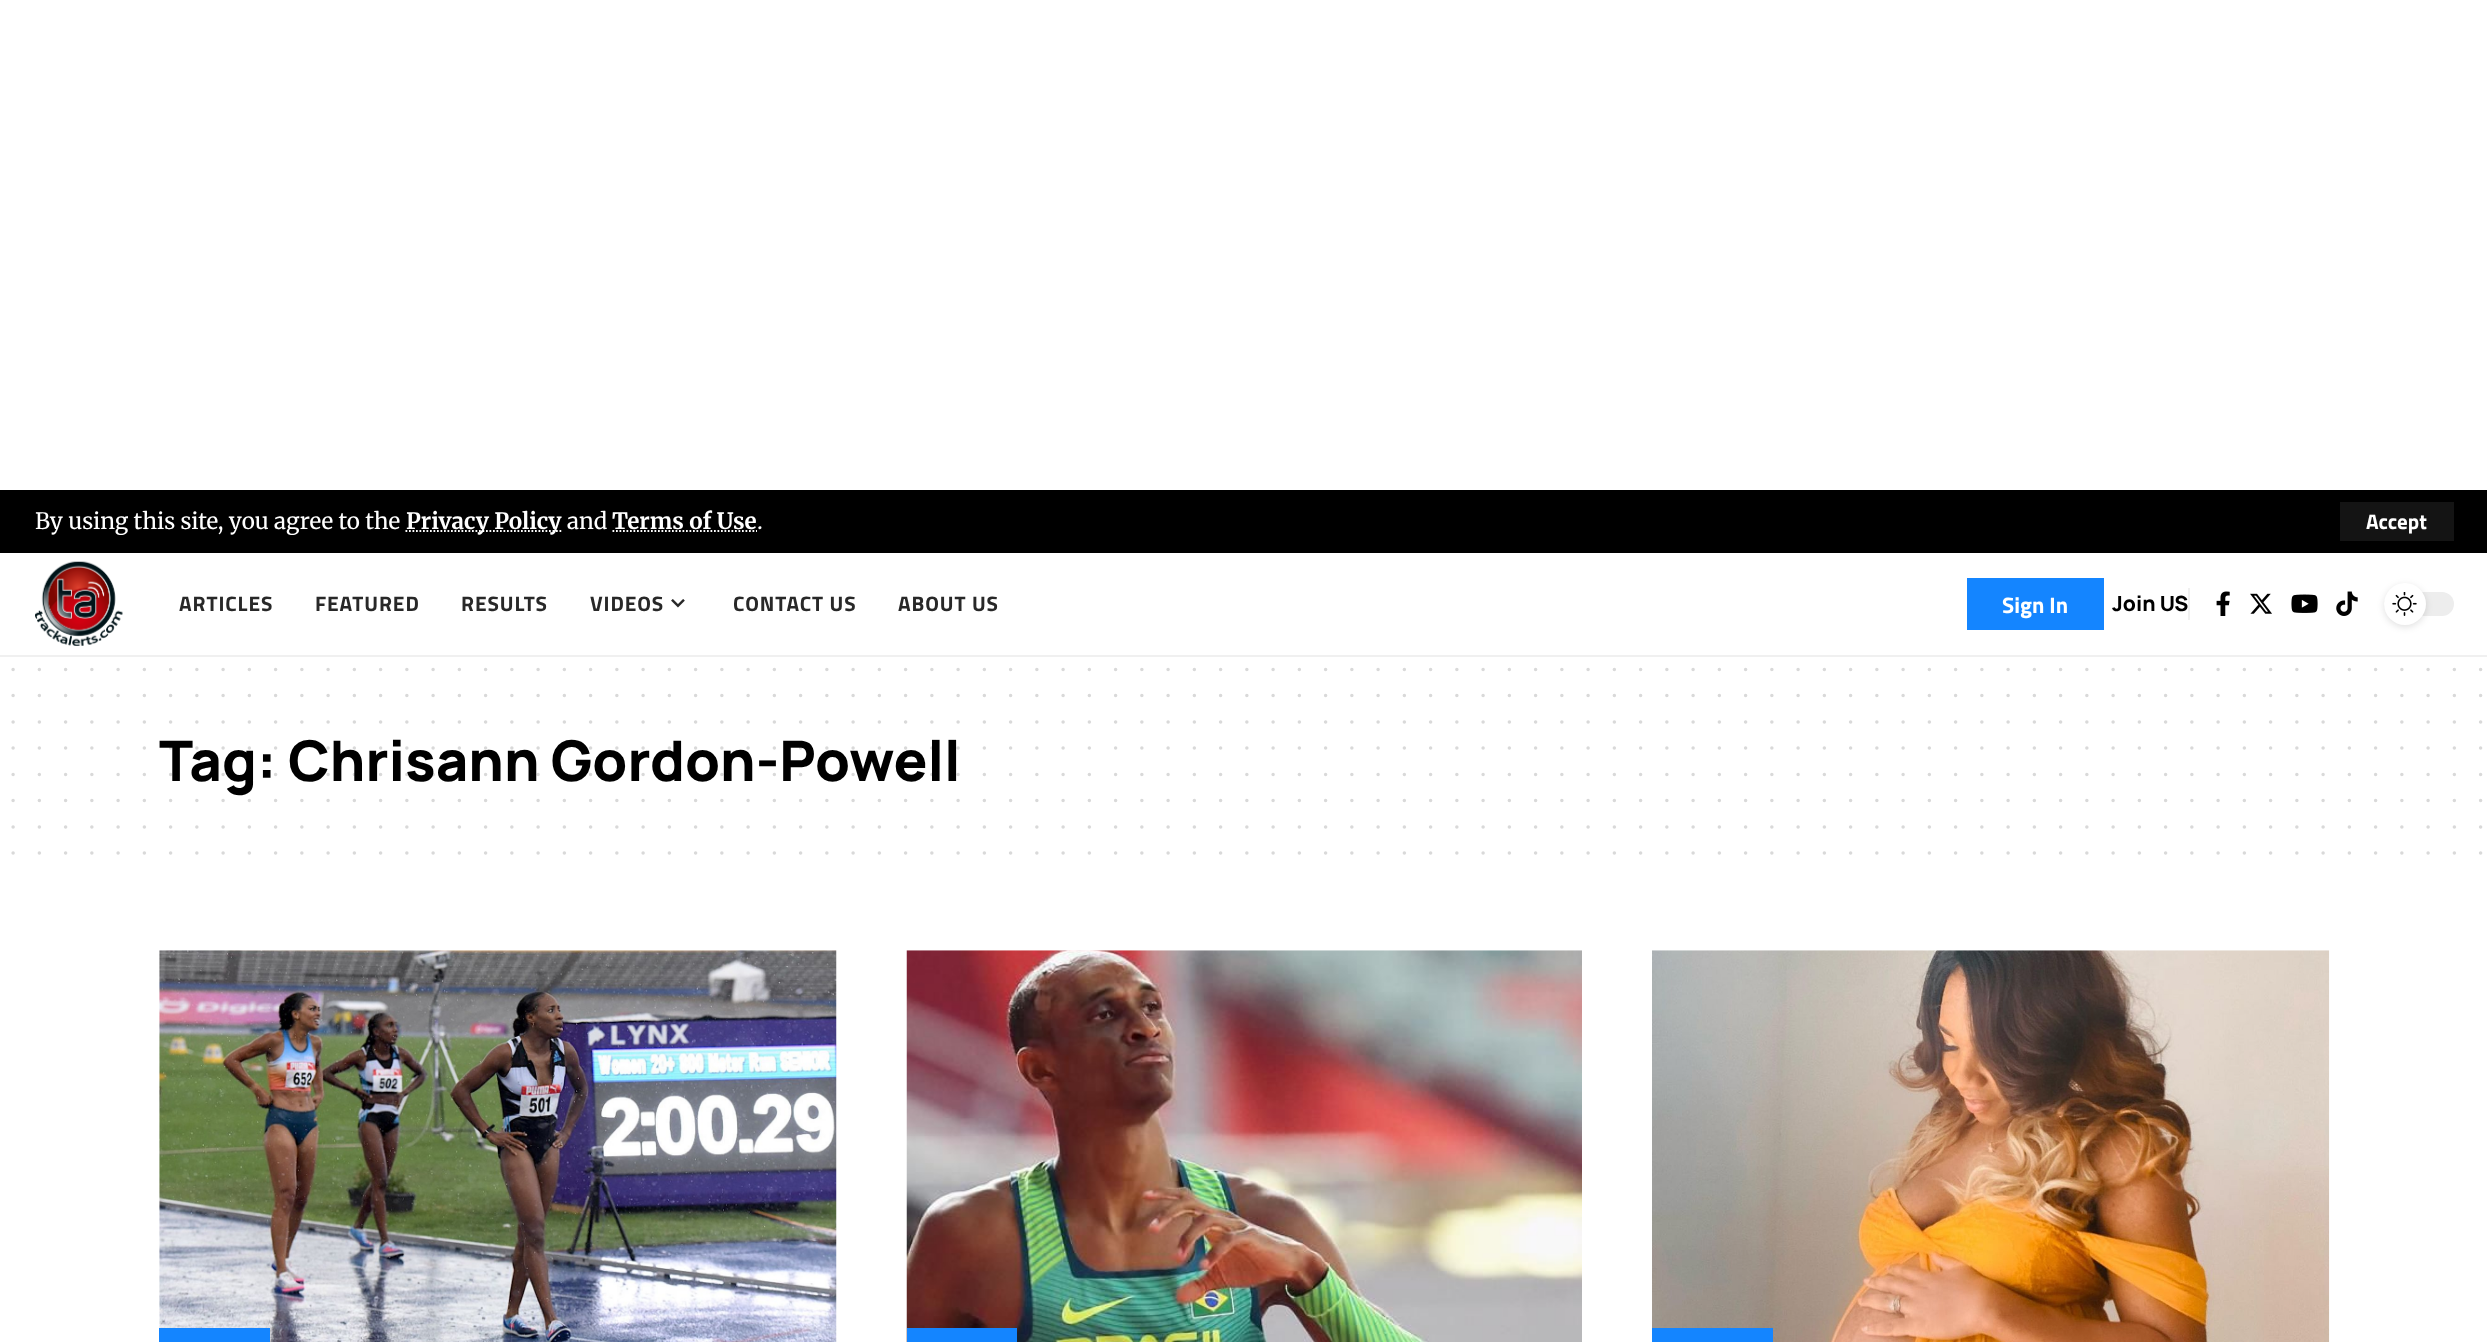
(async () => {
    const canvas = document.querySelector("canvas");
    canvas.width = 2487;
    canvas.height = 1342;
    const context = canvas.getContext("2d");
    context.miterLimit = 4;
    context.fontKerning = "normal";
    function write(s, x, y, font, color) {
        context.font = font;
        context.fillStyle = color;
        context.fillText(s, x, y);
    }
    function block(x, y, w, h, color) {
        context.fillStyle = color;
        context.fillRect(x, y, w, h);
    }
    function card(x, y, w, h, r, color) {
        context.fillStyle = color;
        context.beginPath();
        context.roundRect(x, y, w, h, r);
        context.fill();
    }
    async function photo(src, x, y, w, h) {
        const img = new Image();
        img.src = src;
        await img.decode();
        context.drawImage(img, x, y, w, h);
    }

    block(0, 0, 2487, 1342, "rgb(255, 255, 255)");
    block(0, 490, 2487, 63, "rgb(0, 0, 0)");
    write("By using this site, you agree to the", 35, 529, "22.4px Merriweather", "rgb(255, 255, 255)");
    context.beginPath();
    context.moveTo(405.5, 531);
    context.lineTo(561.5, 531);
    context.strokeStyle = "rgb(255, 255, 255)";
    context.lineWidth = 1.8;
    context.setLineDash([1.75, 1.75]);
    context.stroke();
    write("Privacy Policy", 406, 529, "bold 22.4px Merriweather", "rgb(255, 255, 255)");
    write("and", 567, 529, "22.4px Merriweather", "rgb(255, 255, 255)");
    write("Terms of Use", 612, 529, "bold 22.4px Merriweather", "rgb(255, 255, 255)");
    context.beginPath();
    context.moveTo(612.5, 531);
    context.lineTo(757, 531);
    context.stroke();
    write(".", 757, 529, "22.4px Merriweather", "rgb(255, 255, 255)");
    block(2340, 502, 114, 39, "rgb(20, 20, 20)");
    write("Accept", 2366, 529, "bold 21px Titillium Web", "rgb(255, 255, 255)");
    block(0, 655, 2487, 2, "rgb(240, 240, 240)");
    await photo("media/1.png", 35, 561, 88, 85);
    context.letterSpacing = "0.9px";
    write("ARTICLES", 179, 611, "bold 21px Titillium Web", "rgb(40, 40, 40)");
    write("FEATURED", 315, 611, "bold 21px Titillium Web", "rgb(40, 40, 40)");
    write("RESULTS", 461, 611, "bold 21px Titillium Web", "rgb(40, 40, 40)");
    write("VIDEOS", 590, 611, "bold 21px Titillium Web", "rgb(40, 40, 40)");
    await photo("media/2.png", 671, 599, 14, 9);
    write("CONTACT US", 733, 611, "bold 21px Titillium Web", "rgb(40, 40, 40)");
    write("ABOUT US", 898, 611, "bold 21px Titillium Web", "rgb(40, 40, 40)");
    block(1967, 578, 137, 52, "rgb(20, 133, 255)");
    context.letterSpacing = "0px";
    write("Sign In", 2002, 613, "bold 22.4px Titillium Web", "rgb(255, 255, 255)");
    block(2188, 588, 2, 32, "rgb(240, 240, 240)");
    write("Join US", 2112, 611, "800 21px Manrope", "rgb(0, 0, 0)");
    await photo("media/3.png", 2216, 591, 14, 25);
    await photo("media/4.png", 2250, 593, 22, 21);
    await photo("media/5.png", 2291, 594, 27, 19);
    await photo("media/6.png", 2336, 591, 22, 25);
    card(2384, 592, 70, 24, 12, "rgb(237, 237, 237)");
    context.fillStyle = "rgba(0, 0, 0, 0.12)";
    context.filter = "blur(3.5px)";
    context.beginPath();
    context.roundRect(2384, 585, 42, 42, 21);
    context.fill();
    context.filter = "none";
    context.fillStyle = "rgb(255, 255, 255)";
    context.beginPath();
    context.arc(2405, 604, 21, 0, Math.PI * 2);
    context.fill();
    await photo("media/7.png", 2392, 592, 25, 24);
    context.beginPath();
    context.moveTo(13.1, 669.4);
    context.lineTo(2481, 669.4);
    context.strokeStyle = "rgb(217, 217, 217)";
    context.lineWidth = 3.5;
    context.lineCap = "round";
    context.setLineDash([0, 26.25]);
    context.stroke();
    context.beginPath();
    context.moveTo(13.1, 695.6);
    context.lineTo(2481, 695.6);
    context.stroke();
    context.beginPath();
    context.moveTo(13.1, 721.9);
    context.lineTo(2481, 721.9);
    context.stroke();
    write("Tag: Chrisann Gordon-Powell", 159, 781, "800 56px Manrope", "rgb(0, 0, 0)");
    context.beginPath();
    context.moveTo(13.1, 748.1);
    context.lineTo(2481, 748.1);
    context.strokeStyle = "rgba(0, 0, 0, 0.15)";
    context.stroke();
    context.beginPath();
    context.moveTo(13.1, 774.4);
    context.lineTo(2481, 774.4);
    context.stroke();
    context.beginPath();
    context.moveTo(13.1, 800.6);
    context.lineTo(2481, 800.6);
    context.strokeStyle = "rgb(217, 217, 217)";
    context.stroke();
    context.beginPath();
    context.moveTo(13.1, 826.9);
    context.lineTo(2481, 826.9);
    context.stroke();
    context.beginPath();
    context.moveTo(13.1, 853.1);
    context.lineTo(2481, 853.1);
    context.stroke();
    await photo("media/8.png", 159, 950, 678, 392);
    block(159, 1328, 111, 14, "rgb(20, 133, 255)");
    await photo("media/9.png", 906, 950, 676, 392);
    block(907, 1328, 110, 14, "rgb(20, 133, 255)");
    await photo("media/10.png", 1652, 950, 678, 392);
    block(1652, 1328, 121, 14, "rgb(20, 133, 255)");
})();
